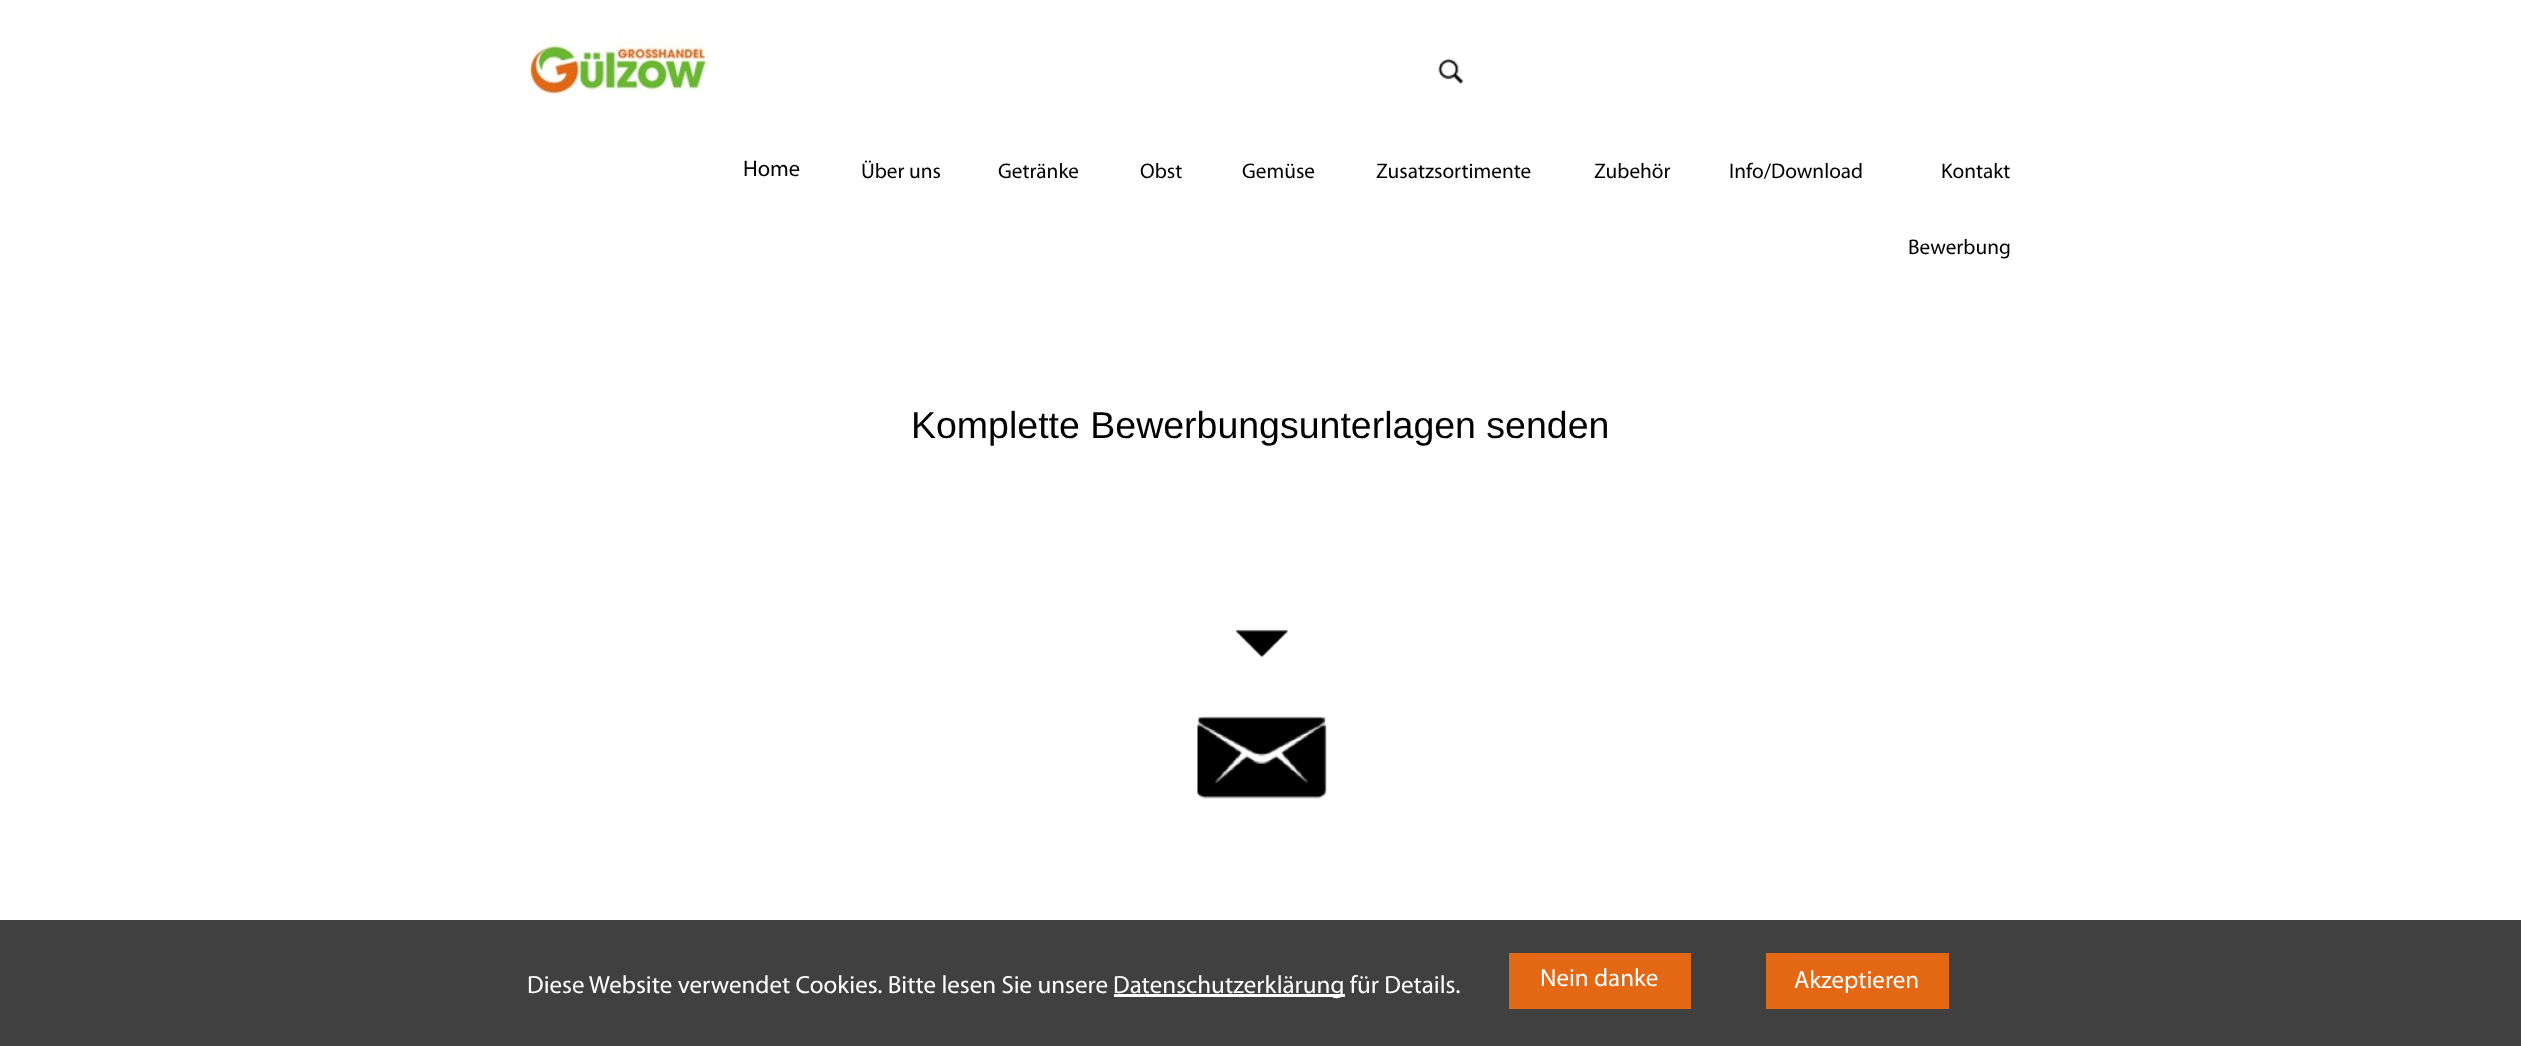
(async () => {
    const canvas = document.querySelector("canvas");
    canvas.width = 2521;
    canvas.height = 1046;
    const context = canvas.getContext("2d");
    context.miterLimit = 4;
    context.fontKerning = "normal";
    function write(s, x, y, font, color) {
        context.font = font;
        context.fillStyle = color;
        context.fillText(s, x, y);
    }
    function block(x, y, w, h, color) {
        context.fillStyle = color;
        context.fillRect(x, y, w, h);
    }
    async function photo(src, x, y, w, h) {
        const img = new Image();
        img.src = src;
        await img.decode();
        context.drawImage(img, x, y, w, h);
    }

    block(0, 0, 2521, 1046, "rgb(255, 255, 255)");
    await photo("media/1.png", 528, 32, 183, 64);
    await photo("media/2.png", 1438, 58, 26, 26);
    write("Home", 743, 176, "22.5px Myriad", "rgb(0, 0, 0)");
    write("Über uns", 861, 178, "21.25px Myriad", "rgb(0, 0, 0)");
    write("Getränke", 998, 178, "21.25px Myriad", "rgb(0, 0, 0)");
    write("Obst", 1140, 178, "21.25px Myriad", "rgb(0, 0, 0)");
    write("Gemüse", 1242, 178, "21.25px Myriad", "rgb(0, 0, 0)");
    write("Zusatzsortimente", 1376, 178, "21.25px Myriad", "rgb(0, 0, 0)");
    write("Zubehör", 1594, 178, "21.25px Myriad", "rgb(0, 0, 0)");
    write("Info/Download", 1729, 178, "21.25px Myriad", "rgb(0, 0, 0)");
    write("Kontakt", 1941, 178, "21.25px Myriad", "rgb(0, 0, 0)");
    write("Bewerbung", 1908, 254, "21.25px Myriad", "rgb(0, 0, 0)");
    write("Komplette Bewerbungsunterlagen senden", 911, 438, "37.5px Liberation Sans", "rgb(0, 0, 0)");
    await photo("media/3.png", 1236, 629, 52, 29);
    await photo("media/4.png", 1197, 716, 130, 83);
    block(0, 920, 2521, 126, "rgb(64, 64, 64)");
    write("Diese Website verwendet Cookies. Bitte lesen Sie unsere", 527, 993, "25px Myriad", "rgb(255, 255, 255)");
    block(1114, 994, 231, 3, "rgb(255, 255, 255)");
    write("Datenschutzerklärung für Details.", 1113, 993, "25px Myriad", "rgb(255, 255, 255)");
    block(1509, 953, 182, 56, "rgb(228, 103, 20)");
    write("Nein danke", 1540, 986, "25px Myriad", "rgb(255, 255, 255)");
    block(1766, 953, 183, 56, "rgb(228, 103, 20)");
    write("Akzeptieren", 1794, 988, "25px Myriad", "rgb(255, 255, 255)");
})();
